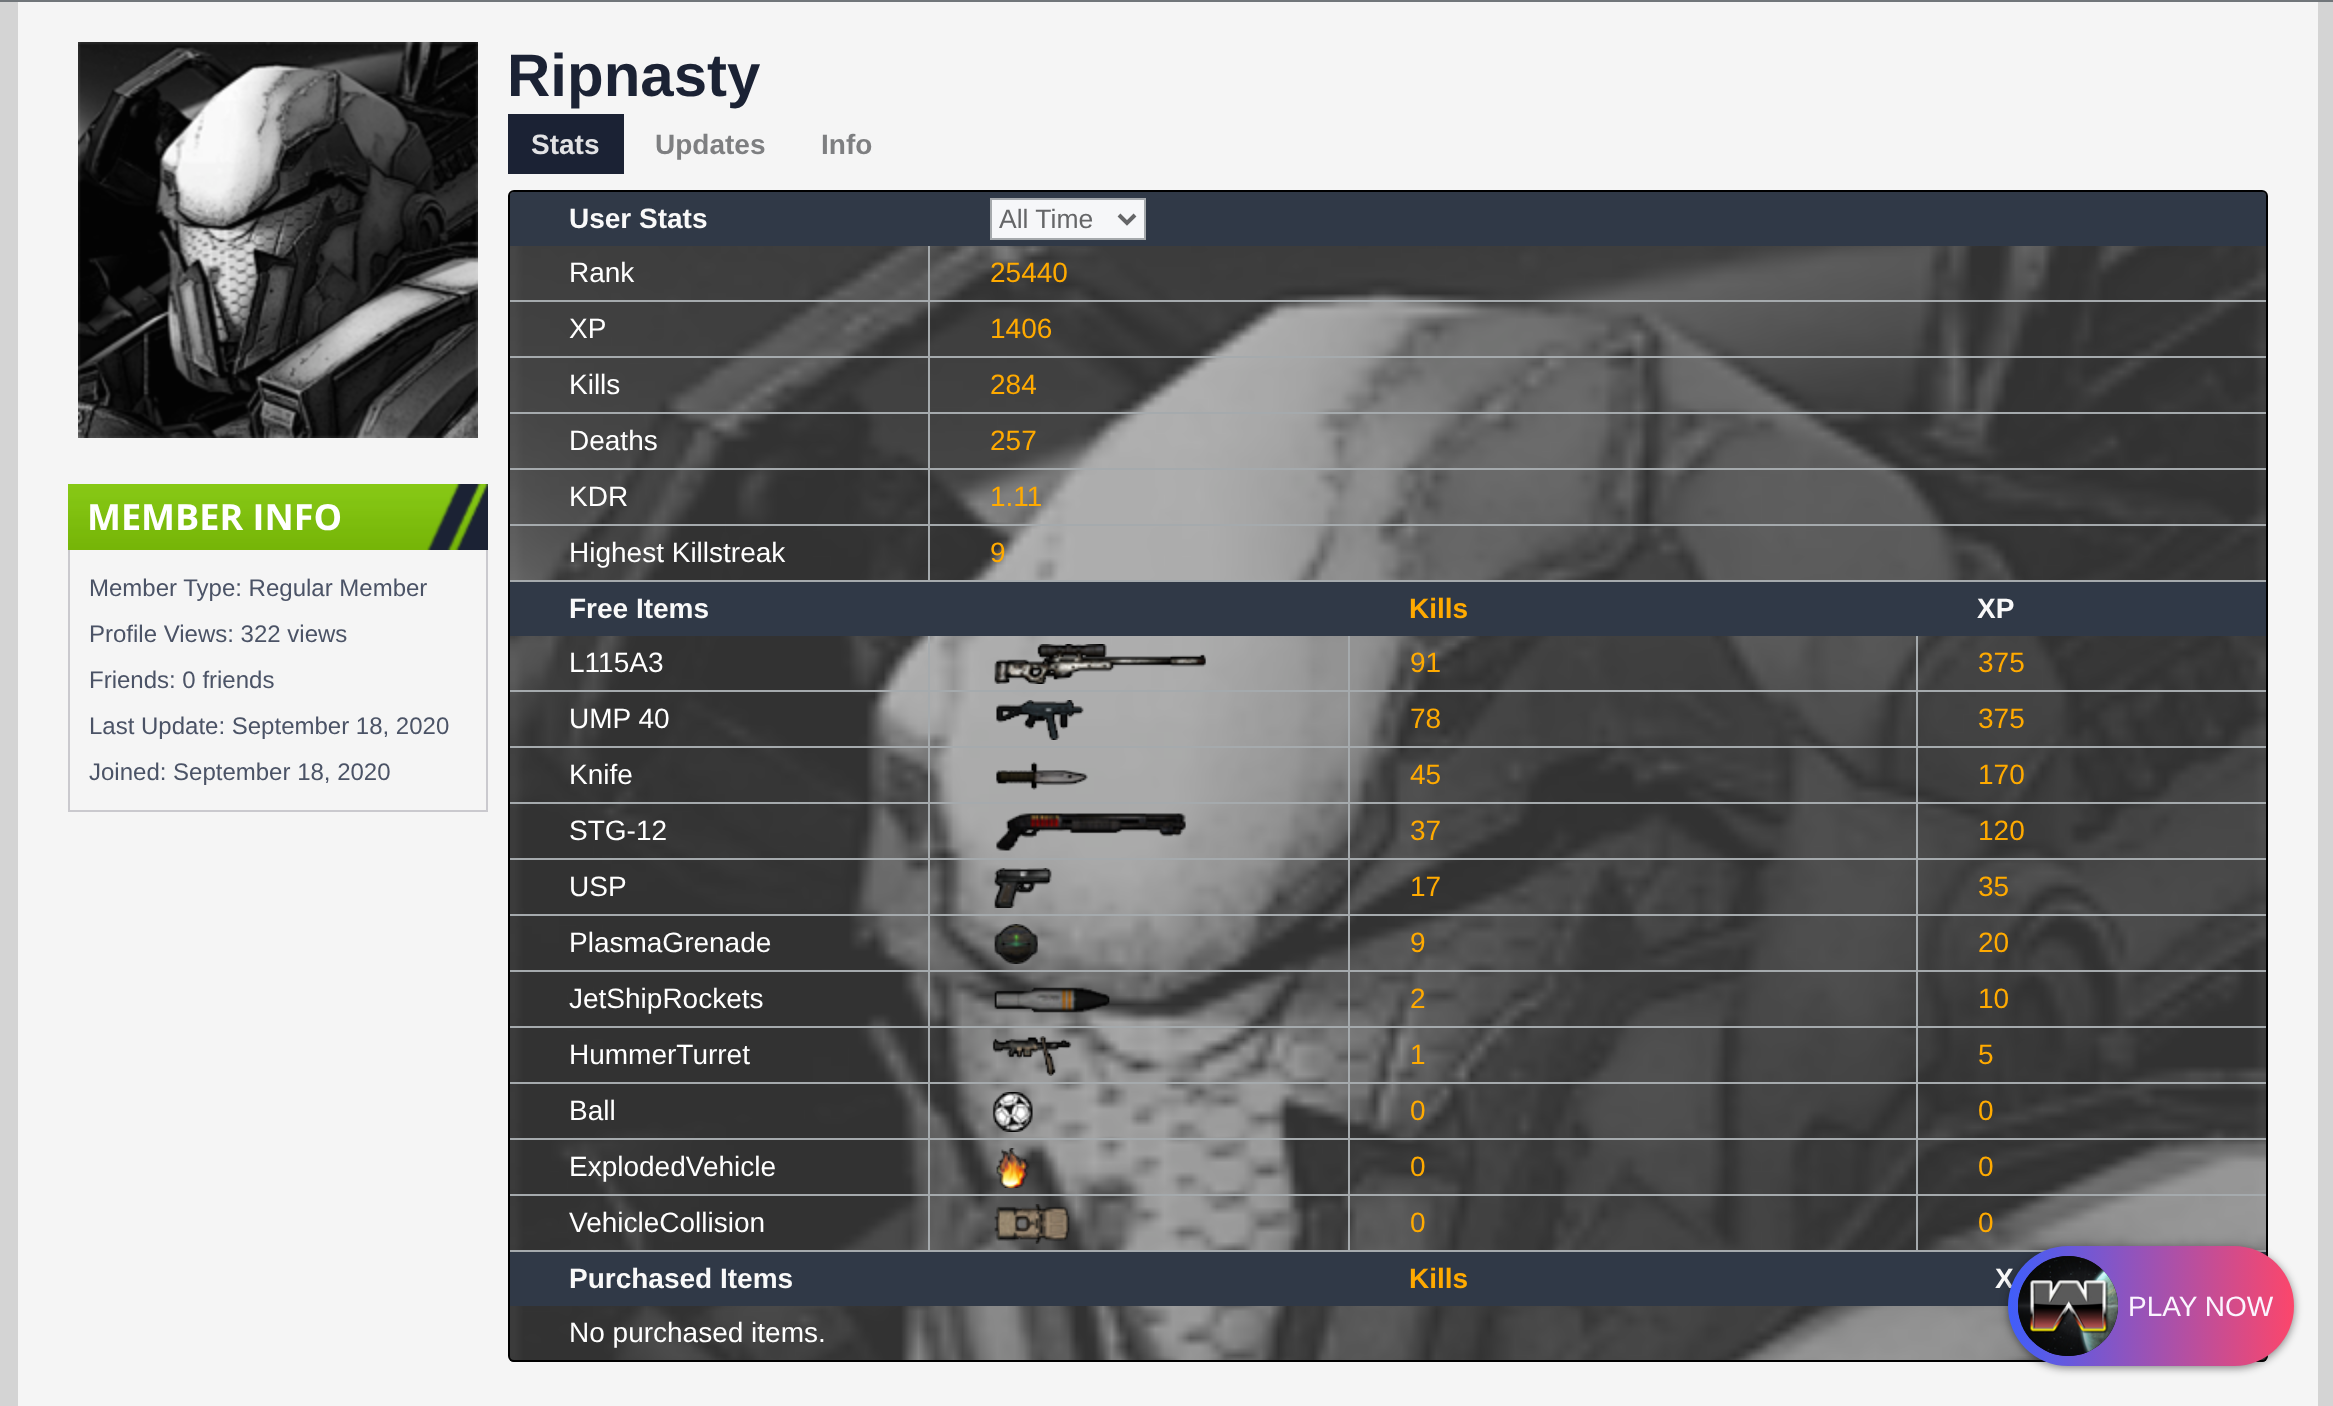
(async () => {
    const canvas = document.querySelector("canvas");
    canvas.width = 2333;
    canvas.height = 1406;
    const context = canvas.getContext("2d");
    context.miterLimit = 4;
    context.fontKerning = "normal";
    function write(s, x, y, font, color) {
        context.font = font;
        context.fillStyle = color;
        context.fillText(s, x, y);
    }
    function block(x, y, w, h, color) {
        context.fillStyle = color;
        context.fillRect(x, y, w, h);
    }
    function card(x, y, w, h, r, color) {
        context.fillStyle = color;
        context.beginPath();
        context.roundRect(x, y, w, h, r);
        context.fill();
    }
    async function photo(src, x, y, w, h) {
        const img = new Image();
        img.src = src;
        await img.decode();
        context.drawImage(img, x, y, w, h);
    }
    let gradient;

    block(0, 0, 2333, 1406, "rgb(212, 212, 212)");
    block(18, 2, 2300, 1404, "rgb(245, 245, 245)");
    await photo("media/1.png", 78, 42, 400, 396);
    block(425, 484, 63, 66, "rgb(27, 34, 52)");
    await photo("media/2.png", 68, 484, 420, 66);
    write("MEMBER INFO", 87, 530, "bold 36px Open Sans", "rgb(255, 255, 255)");
    block(486, 550, 2, 262, "rgb(202, 201, 206)");
    block(68, 810, 420, 2, "rgb(202, 201, 206)");
    block(68, 550, 2, 262, "rgb(202, 201, 206)");
    write("Member Type: Regular Member", 89, 596, "24px Liberation Sans", "rgb(75, 83, 102)");
    write("Profile Views: 322 views", 89, 642, "24px Liberation Sans", "rgb(75, 83, 102)");
    write("Friends: 0 friends", 89, 688, "24px Liberation Sans", "rgb(75, 83, 102)");
    write("Last Update: September 18, 2020", 89, 734, "24px Liberation Sans", "rgb(75, 83, 102)");
    write("Joined: September 18, 2020", 89, 780, "24px Liberation Sans", "rgb(75, 83, 102)");
    write("Ripnasty", 507, 96, "bold 60px Liberation Sans", "rgb(27, 34, 52)");
    block(508, 114, 116, 60, "rgb(27, 34, 52)");
    write("Stats", 531, 154, "bold 28px Liberation Sans", "rgb(226, 226, 228)");
    write("Updates", 655, 154, "bold 28px Liberation Sans", "rgb(126, 127, 129)");
    write("Info", 821, 154, "bold 28px Liberation Sans", "rgb(126, 127, 129)");
    await photo("media/3.png", 510, 192, 1756, 1170);
    context.beginPath();
    context.roundRect(509, 191, 1758, 1170, 5);
    context.strokeStyle = "rgb(0, 0, 0)";
    context.lineWidth = 2;
    context.stroke();
    card(510, 192, 1756, 1168, 4, "rgba(97, 97, 97, 0.5)");
    context.fillStyle = "rgb(48, 57, 71)";
    context.beginPath();
    context.roundRect(510, 192, 420, 54, [4, 0, 0, 0]);
    context.fill();
    write("User Stats", 569, 228, "bold 28px Liberation Sans", "rgb(249, 249, 249)");
    context.fillStyle = "rgb(48, 57, 71)";
    context.beginPath();
    context.roundRect(930, 192, 1336, 54, [0, 4, 0, 0]);
    context.fill();
    context.fillStyle = "rgb(246, 247, 249)";
    context.beginPath();
    context.rect(991, 199, 154, 40);
    context.fill();
    context.strokeStyle = "rgb(165, 169, 172)";
    context.stroke();
    context.beginPath();
    context.moveTo(1119, 215);
    context.lineTo(1127, 223);
    context.lineTo(1135, 215);
    context.strokeStyle = "rgb(101, 102, 104)";
    context.lineWidth = 4;
    context.stroke();
    write("All Time", 999, 228, "26.5px Liberation Sans", "rgb(101, 102, 104)");
    block(928, 580, 1338, 2, "rgb(165, 170, 173)");
    block(928, 524, 2, 58, "rgb(165, 170, 173)");
    block(928, 524, 1338, 2, "rgb(165, 170, 173)");
    block(928, 468, 2, 58, "rgb(165, 170, 173)");
    block(928, 468, 1338, 2, "rgb(165, 170, 173)");
    block(928, 412, 2, 58, "rgb(165, 170, 173)");
    block(928, 412, 1338, 2, "rgb(165, 170, 173)");
    block(928, 356, 2, 58, "rgb(165, 170, 173)");
    block(928, 356, 1338, 2, "rgb(165, 170, 173)");
    block(928, 300, 2, 58, "rgb(165, 170, 173)");
    block(928, 300, 1338, 2, "rgb(165, 170, 173)");
    block(928, 246, 2, 56, "rgb(165, 170, 173)");
    block(510, 300, 420, 2, "rgb(165, 170, 173)");
    write("Rank", 569, 282, "28px Liberation Sans", "rgb(255, 255, 255)");
    write("25440", 990, 282, "28px Liberation Sans", "rgb(255, 170, 0)");
    block(510, 356, 420, 2, "rgb(165, 170, 173)");
    write("XP", 569, 338, "28px Liberation Sans", "rgb(255, 255, 255)");
    write("1406", 990, 338, "28px Liberation Sans", "rgb(255, 170, 0)");
    block(510, 412, 420, 2, "rgb(165, 170, 173)");
    write("Kills", 569, 394, "28px Liberation Sans", "rgb(255, 255, 255)");
    write("284", 990, 394, "28px Liberation Sans", "rgb(255, 170, 0)");
    block(510, 468, 420, 2, "rgb(165, 170, 173)");
    write("Deaths", 569, 450, "28px Liberation Sans", "rgb(255, 255, 255)");
    write("257", 990, 450, "28px Liberation Sans", "rgb(255, 170, 0)");
    block(510, 524, 420, 2, "rgb(165, 170, 173)");
    write("KDR", 569, 506, "28px Liberation Sans", "rgb(255, 255, 255)");
    write("1.11", 990, 506, "28px Liberation Sans", "rgb(255, 170, 0)");
    block(510, 580, 420, 2, "rgb(165, 170, 173)");
    write("Highest Killstreak", 569, 562, "28px Liberation Sans", "rgb(255, 255, 255)");
    write("9", 990, 562, "28px Liberation Sans", "rgb(255, 170, 0)");
    block(510, 582, 1756, 54, "rgb(48, 57, 71)");
    write("Free Items", 569, 618, "bold 28px Liberation Sans", "rgb(249, 249, 249)");
    write("Kills", 1409, 618, "bold 28px Liberation Sans", "rgb(255, 170, 0)");
    write("XP", 1977, 618, "bold 28px Liberation Sans", "rgb(249, 249, 249)");
    block(1916, 1250, 350, 2, "rgb(165, 170, 173)");
    block(1916, 1194, 2, 58, "rgb(165, 170, 173)");
    block(1916, 1194, 350, 2, "rgb(165, 170, 173)");
    block(1916, 1138, 2, 58, "rgb(165, 170, 173)");
    block(1916, 1138, 350, 2, "rgb(165, 170, 173)");
    block(1916, 1082, 2, 58, "rgb(165, 170, 173)");
    block(1916, 1082, 350, 2, "rgb(165, 170, 173)");
    block(1916, 1026, 2, 58, "rgb(165, 170, 173)");
    block(1916, 1026, 350, 2, "rgb(165, 170, 173)");
    block(1916, 970, 2, 58, "rgb(165, 170, 173)");
    block(1916, 970, 350, 2, "rgb(165, 170, 173)");
    block(1916, 914, 2, 58, "rgb(165, 170, 173)");
    block(1916, 914, 350, 2, "rgb(165, 170, 173)");
    block(1916, 858, 2, 58, "rgb(165, 170, 173)");
    block(1916, 858, 350, 2, "rgb(165, 170, 173)");
    block(1916, 802, 2, 58, "rgb(165, 170, 173)");
    block(1916, 802, 350, 2, "rgb(165, 170, 173)");
    block(1916, 746, 2, 58, "rgb(165, 170, 173)");
    block(1916, 746, 350, 2, "rgb(165, 170, 173)");
    block(1916, 690, 2, 58, "rgb(165, 170, 173)");
    block(1916, 690, 350, 2, "rgb(165, 170, 173)");
    block(1916, 636, 2, 56, "rgb(165, 170, 173)");
    block(1348, 1250, 570, 2, "rgb(165, 170, 173)");
    block(1348, 1194, 2, 58, "rgb(165, 170, 173)");
    block(1348, 1194, 570, 2, "rgb(165, 170, 173)");
    block(1348, 1138, 2, 58, "rgb(165, 170, 173)");
    block(1348, 1138, 570, 2, "rgb(165, 170, 173)");
    block(1348, 1082, 2, 58, "rgb(165, 170, 173)");
    block(1348, 1082, 570, 2, "rgb(165, 170, 173)");
    block(1348, 1026, 2, 58, "rgb(165, 170, 173)");
    block(1348, 1026, 570, 2, "rgb(165, 170, 173)");
    block(1348, 970, 2, 58, "rgb(165, 170, 173)");
    block(1348, 970, 570, 2, "rgb(165, 170, 173)");
    block(1348, 914, 2, 58, "rgb(165, 170, 173)");
    block(1348, 914, 570, 2, "rgb(165, 170, 173)");
    block(1348, 858, 2, 58, "rgb(165, 170, 173)");
    block(1348, 858, 570, 2, "rgb(165, 170, 173)");
    block(1348, 802, 2, 58, "rgb(165, 170, 173)");
    block(1348, 802, 570, 2, "rgb(165, 170, 173)");
    block(1348, 746, 2, 58, "rgb(165, 170, 173)");
    block(1348, 746, 570, 2, "rgb(165, 170, 173)");
    block(1348, 690, 2, 58, "rgb(165, 170, 173)");
    block(1348, 690, 570, 2, "rgb(165, 170, 173)");
    block(1348, 636, 2, 56, "rgb(165, 170, 173)");
    block(928, 1250, 422, 2, "rgb(165, 170, 173)");
    block(928, 1194, 2, 58, "rgb(165, 170, 173)");
    block(928, 1194, 422, 2, "rgb(165, 170, 173)");
    block(928, 1138, 2, 58, "rgb(165, 170, 173)");
    block(928, 1138, 422, 2, "rgb(165, 170, 173)");
    block(928, 1082, 2, 58, "rgb(165, 170, 173)");
    block(928, 1082, 422, 2, "rgb(165, 170, 173)");
    block(928, 1026, 2, 58, "rgb(165, 170, 173)");
    block(928, 1026, 422, 2, "rgb(165, 170, 173)");
    block(928, 970, 2, 58, "rgb(165, 170, 173)");
    block(928, 970, 422, 2, "rgb(165, 170, 173)");
    block(928, 914, 2, 58, "rgb(165, 170, 173)");
    block(928, 914, 422, 2, "rgb(165, 170, 173)");
    block(928, 858, 2, 58, "rgb(165, 170, 173)");
    block(928, 858, 422, 2, "rgb(165, 170, 173)");
    block(928, 802, 2, 58, "rgb(165, 170, 173)");
    block(928, 802, 422, 2, "rgb(165, 170, 173)");
    block(928, 746, 2, 58, "rgb(165, 170, 173)");
    block(928, 746, 422, 2, "rgb(165, 170, 173)");
    block(928, 690, 2, 58, "rgb(165, 170, 173)");
    block(928, 690, 422, 2, "rgb(165, 170, 173)");
    block(928, 636, 2, 56, "rgb(165, 170, 173)");
    block(510, 690, 420, 2, "rgb(165, 170, 173)");
    write("L115A3", 569, 672, "28px Liberation Sans", "rgb(255, 255, 255)");
    await photo("media/4.png", 994, 644, 212, 40);
    write("91", 1410, 672, "28px Liberation Sans", "rgb(255, 170, 0)");
    write("375", 1978, 672, "28px Liberation Sans", "rgb(255, 170, 0)");
    block(510, 746, 420, 2, "rgb(165, 170, 173)");
    write("UMP 40", 569, 728, "28px Liberation Sans", "rgb(255, 255, 255)");
    await photo("media/5.png", 996, 700, 88, 40);
    write("78", 1410, 728, "28px Liberation Sans", "rgb(255, 170, 0)");
    write("375", 1978, 728, "28px Liberation Sans", "rgb(255, 170, 0)");
    block(510, 802, 420, 2, "rgb(165, 170, 173)");
    write("Knife", 569, 784, "28px Liberation Sans", "rgb(255, 255, 255)");
    await photo("media/6.png", 996, 762, 92, 28);
    write("45", 1410, 784, "28px Liberation Sans", "rgb(255, 170, 0)");
    write("170", 1978, 784, "28px Liberation Sans", "rgb(255, 170, 0)");
    block(510, 858, 420, 2, "rgb(165, 170, 173)");
    write("STG-12", 569, 840, "28px Liberation Sans", "rgb(255, 255, 255)");
    await photo("media/7.png", 996, 813, 190, 38);
    write("37", 1410, 840, "28px Liberation Sans", "rgb(255, 170, 0)");
    write("120", 1978, 840, "28px Liberation Sans", "rgb(255, 170, 0)");
    block(510, 914, 420, 2, "rgb(165, 170, 173)");
    write("USP", 569, 896, "28px Liberation Sans", "rgb(255, 255, 255)");
    await photo("media/8.png", 994, 868, 58, 40);
    write("17", 1410, 896, "28px Liberation Sans", "rgb(255, 170, 0)");
    write("35", 1978, 896, "28px Liberation Sans", "rgb(255, 170, 0)");
    block(510, 970, 420, 2, "rgb(165, 170, 173)");
    write("PlasmaGrenade", 569, 952, "28px Liberation Sans", "rgb(255, 255, 255)");
    await photo("media/9.png", 994, 924, 44, 40);
    write("9", 1410, 952, "28px Liberation Sans", "rgb(255, 170, 0)");
    write("20", 1978, 952, "28px Liberation Sans", "rgb(255, 170, 0)");
    block(510, 1026, 420, 2, "rgb(165, 170, 173)");
    write("JetShipRockets", 569, 1008, "28px Liberation Sans", "rgb(255, 255, 255)");
    await photo("media/10.png", 994, 987, 116, 26);
    write("2", 1410, 1008, "28px Liberation Sans", "rgb(255, 170, 0)");
    write("10", 1978, 1008, "28px Liberation Sans", "rgb(255, 170, 0)");
    block(510, 1082, 420, 2, "rgb(165, 170, 173)");
    write("HummerTurret", 569, 1064, "28px Liberation Sans", "rgb(255, 255, 255)");
    await photo("media/11.png", 992, 1036, 80, 40);
    write("1", 1410, 1064, "28px Liberation Sans", "rgb(255, 170, 0)");
    write("5", 1978, 1064, "28px Liberation Sans", "rgb(255, 170, 0)");
    block(510, 1138, 420, 2, "rgb(165, 170, 173)");
    write("Ball", 569, 1120, "28px Liberation Sans", "rgb(255, 255, 255)");
    await photo("media/12.png", 992, 1092, 41, 40);
    write("0", 1410, 1120, "28px Liberation Sans", "rgb(255, 170, 0)");
    write("0", 1978, 1120, "28px Liberation Sans", "rgb(255, 170, 0)");
    block(510, 1194, 420, 2, "rgb(165, 170, 173)");
    write("ExplodedVehicle", 569, 1176, "28px Liberation Sans", "rgb(255, 255, 255)");
    await photo("media/13.png", 996, 1148, 34, 40);
    write("0", 1410, 1176, "28px Liberation Sans", "rgb(255, 170, 0)");
    write("0", 1978, 1176, "28px Liberation Sans", "rgb(255, 170, 0)");
    block(510, 1250, 420, 2, "rgb(165, 170, 173)");
    write("VehicleCollision", 569, 1232, "28px Liberation Sans", "rgb(255, 255, 255)");
    await photo("media/14.png", 994, 1204, 76, 40);
    write("0", 1410, 1232, "28px Liberation Sans", "rgb(255, 170, 0)");
    write("0", 1978, 1232, "28px Liberation Sans", "rgb(255, 170, 0)");
    block(510, 1252, 1756, 54, "rgb(48, 57, 71)");
    write("Purchased Items", 569, 1288, "bold 28px Liberation Sans", "rgb(249, 249, 249)");
    write("Kills", 1409, 1288, "bold 28px Liberation Sans", "rgb(255, 170, 0)");
    write("X", 1995, 1288, "bold 28px Liberation Sans", "rgb(249, 249, 249)");
    write("No purchased items.", 569, 1342, "28px Liberation Sans", "rgb(255, 255, 255)");
    block(0, 0, 2333, 2, "rgb(113, 118, 122)");
    context.fillStyle = "rgba(16, 16, 17, 0.5)";
    context.filter = "blur(4px)";
    context.beginPath();
    context.roundRect(2008, 1248, 286, 120, 60);
    context.fill();
    context.filter = "none";
    gradient = context.createLinearGradient(2008, 1306, 2294, 1306);
    gradient.addColorStop(0, "rgb(63, 94, 251)");
    gradient.addColorStop(1, "rgb(252, 70, 107)");
    context.fillStyle = gradient;
    context.beginPath();
    context.roundRect(2008, 1246, 286, 120, 60);
    context.fill();
    context.fillStyle = "rgb(14, 14, 15)";
    context.beginPath();
    context.arc(2068, 1306, 50, 0, Math.PI * 2);
    context.fill();
    await photo("media/15.png", 2018, 1256, 100, 100);
    write("PLAY NOW", 2128, 1316, "28px Liberation Sans", "rgb(251, 245, 255)");
})();
